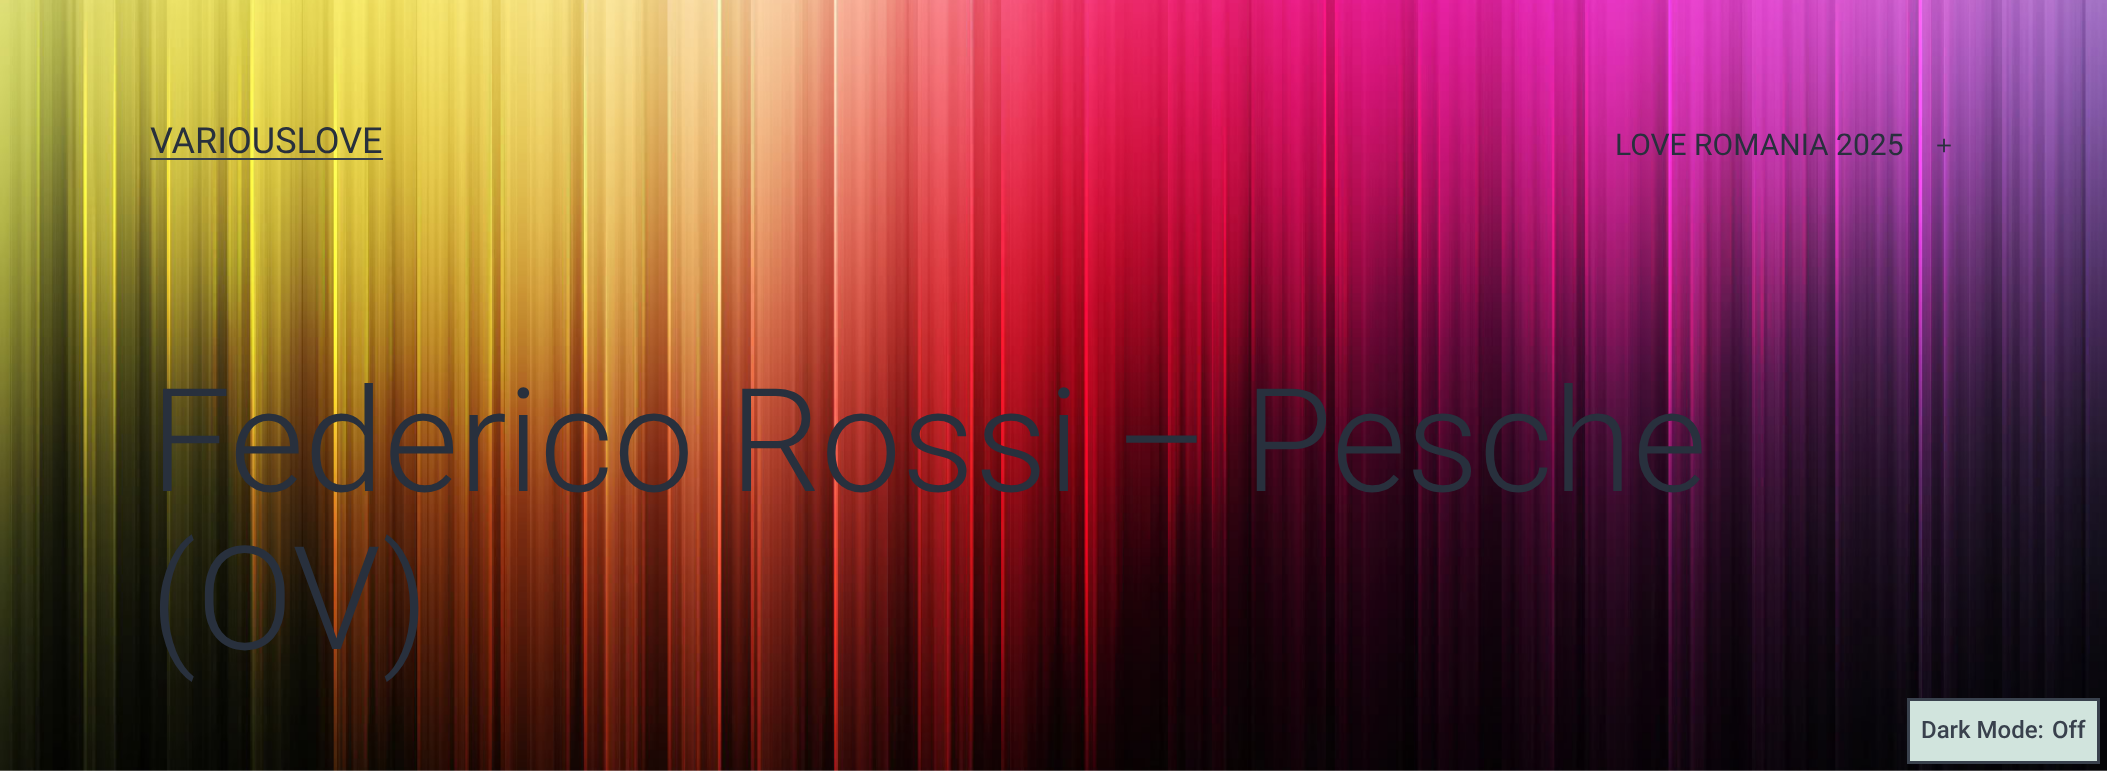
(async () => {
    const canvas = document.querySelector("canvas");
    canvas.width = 2107;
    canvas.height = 771;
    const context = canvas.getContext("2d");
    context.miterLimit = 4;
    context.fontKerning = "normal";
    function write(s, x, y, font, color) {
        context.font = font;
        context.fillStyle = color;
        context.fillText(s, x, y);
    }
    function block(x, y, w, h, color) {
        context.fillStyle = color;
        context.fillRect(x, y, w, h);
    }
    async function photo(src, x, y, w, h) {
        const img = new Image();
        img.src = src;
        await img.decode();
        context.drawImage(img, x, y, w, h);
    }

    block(0, 0, 2107, 771, "rgb(255, 255, 255)");
    await photo("media/1.png", 0, 0, 2107, 771);
    write("VARIOUSLOVE", 150, 153, "36px Roboto", "rgb(40, 48, 61)");
    block(150, 158, 233, 2, "rgb(57, 65, 77)");
    write("LOVE ROMANIA 2025", 1615, 155, "30px Roboto", "rgb(40, 48, 61)");
    await photo("media/2.png", 1937, 138, 14, 15);
    write("Federico Rossi – Pesche", 150, 491, "300 144px Roboto", "rgb(40, 48, 61)");
    write("(OV)", 150, 649, "300 144px Roboto", "rgb(40, 48, 61)");
    context.fillStyle = "rgb(209, 228, 221)";
    context.beginPath();
    context.rect(1908.5, 699.5, 190, 63);
    context.fill();
    context.strokeStyle = "rgb(57, 65, 77)";
    context.lineWidth = 3;
    context.stroke();
    write("Dark Mode:", 1921, 738, "500 24px Roboto", "rgb(57, 65, 77)");
    write("Off", 2052, 738, "500 24px Roboto", "rgb(57, 65, 77)");
})();
